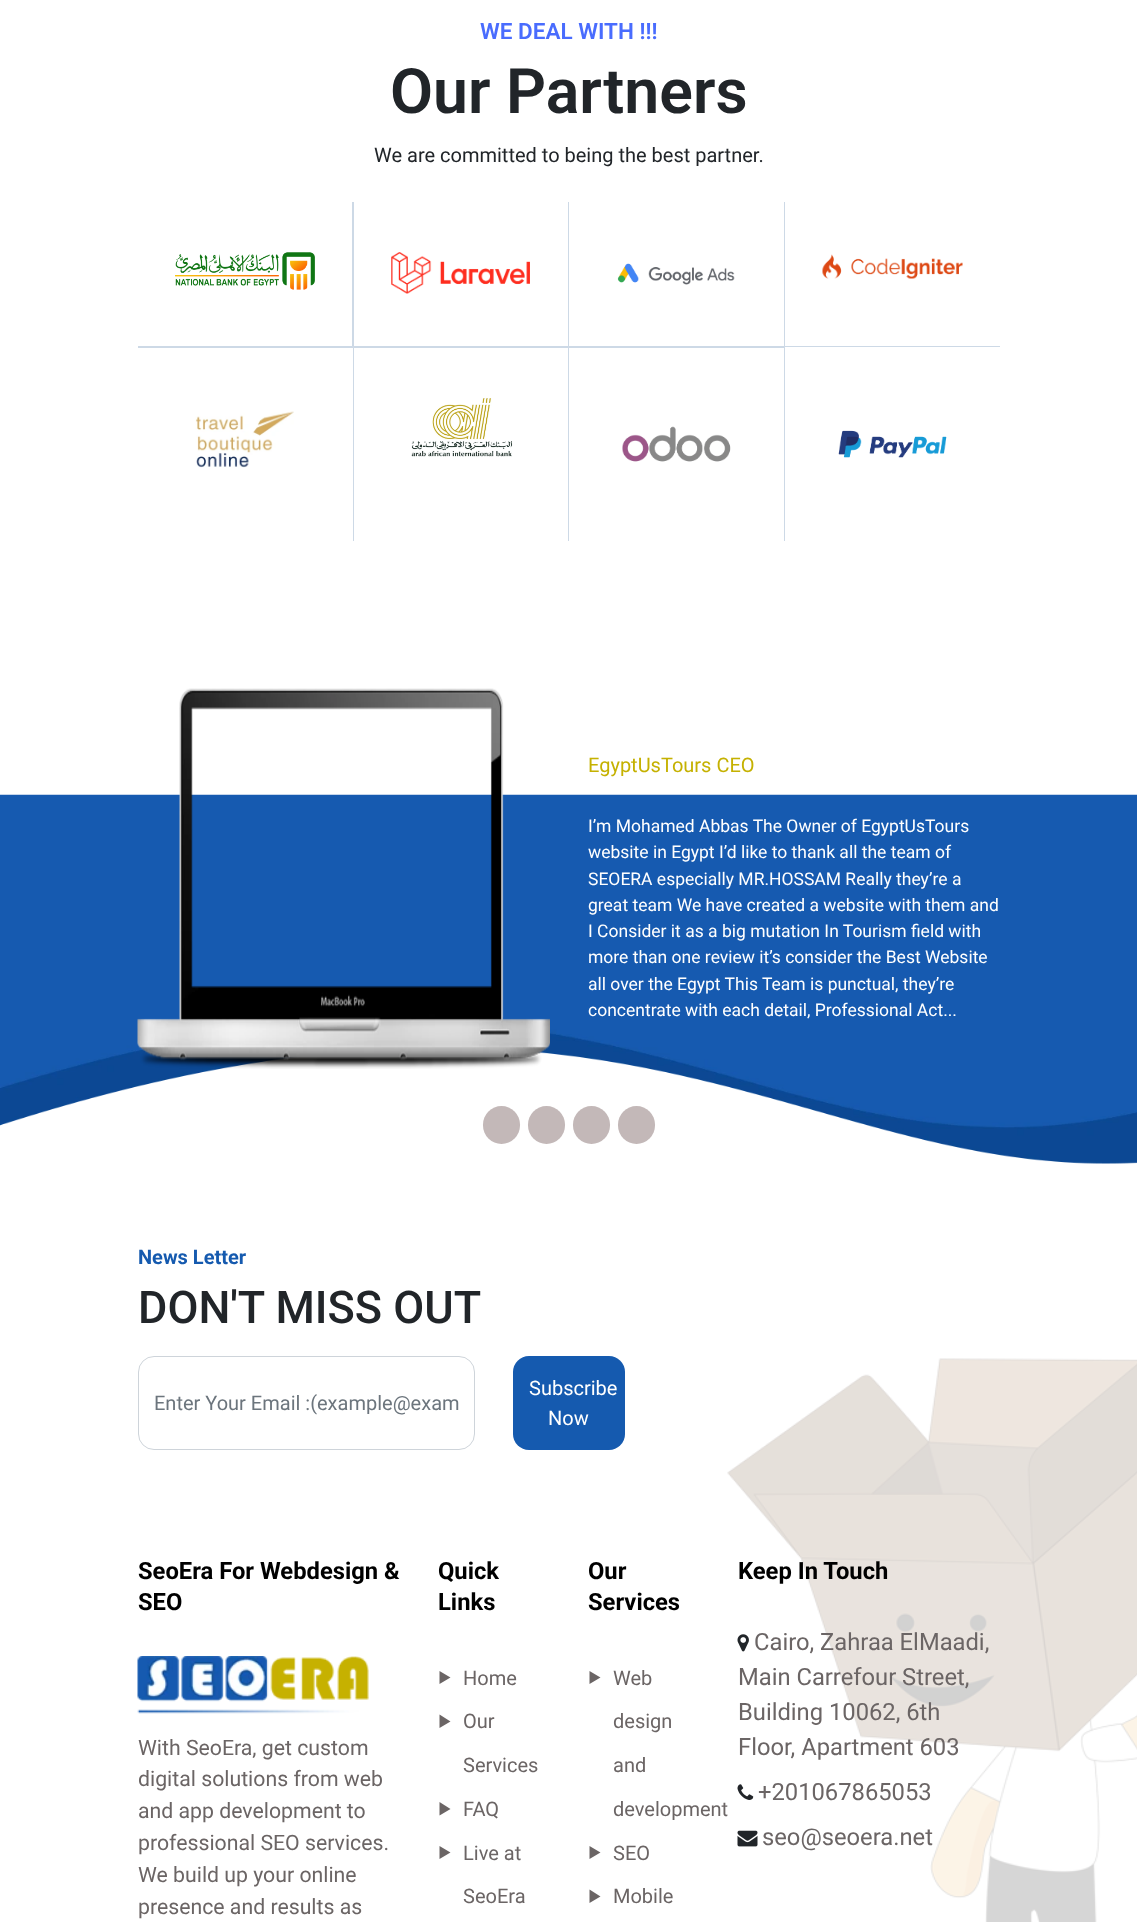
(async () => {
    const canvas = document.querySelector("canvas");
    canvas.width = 1137;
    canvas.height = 1922;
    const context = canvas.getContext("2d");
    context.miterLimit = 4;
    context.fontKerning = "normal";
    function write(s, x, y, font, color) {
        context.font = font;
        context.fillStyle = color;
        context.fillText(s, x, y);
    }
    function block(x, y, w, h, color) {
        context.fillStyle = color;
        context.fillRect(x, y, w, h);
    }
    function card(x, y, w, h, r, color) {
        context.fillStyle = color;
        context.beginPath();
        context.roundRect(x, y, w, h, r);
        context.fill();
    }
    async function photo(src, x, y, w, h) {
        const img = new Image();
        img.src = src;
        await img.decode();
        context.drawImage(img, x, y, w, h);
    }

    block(0, 0, 1137, 1922, "rgb(255, 255, 255)");
    write("WE DEAL WITH !!!", 480, 39, "600 22.5px Roboto", "rgb(73, 108, 254)");
    write("Our Partners", 390, 113, "600 62.5px Roboto", "rgb(33, 37, 41)");
    write("We are committed to being the best partner.", 374, 162, "20px Roboto", "rgb(33, 37, 41)");
    context.fillStyle = "rgb(205, 217, 230)";
    context.beginPath();
    context.moveTo(354, 202);
    context.lineTo(354, 348);
    context.lineTo(352, 346);
    context.lineTo(352, 202);
    context.closePath();
    context.fill();
    context.fillStyle = "rgba(3, 64, 131, 0.2)";
    context.beginPath();
    context.moveTo(354, 348);
    context.lineTo(138, 348);
    context.lineTo(138, 346);
    context.lineTo(352, 346);
    context.closePath();
    context.fill();
    await photo("media/1.png", 175, 252, 140, 38);
    context.fillStyle = "rgb(205, 217, 230)";
    context.beginPath();
    context.moveTo(569, 202);
    context.lineTo(569, 348);
    context.lineTo(568, 346);
    context.lineTo(568, 202);
    context.closePath();
    context.fill();
    context.fillStyle = "rgba(3, 64, 131, 0.2)";
    context.beginPath();
    context.moveTo(569, 348);
    context.lineTo(354, 348);
    context.lineTo(354, 346);
    context.lineTo(568, 346);
    context.closePath();
    context.fill();
    await photo("media/2.png", 391, 252, 139, 42);
    context.fillStyle = "rgb(205, 217, 230)";
    context.beginPath();
    context.moveTo(785, 202);
    context.lineTo(785, 348);
    context.lineTo(784, 346);
    context.lineTo(784, 202);
    context.closePath();
    context.fill();
    context.fillStyle = "rgba(3, 64, 131, 0.2)";
    context.beginPath();
    context.moveTo(785, 348);
    context.lineTo(569, 348);
    context.lineTo(569, 346);
    context.lineTo(784, 346);
    context.closePath();
    context.fill();
    await photo("media/3.png", 617, 263, 118, 22);
    block(785, 346, 215, 1, "rgb(205, 217, 230)");
    await photo("media/4.png", 822, 254, 141, 25);
    block(353, 348, 1, 193, "rgb(205, 217, 230)");
    await photo("media/5.png", 195, 411, 99, 57);
    block(568, 348, 1, 193, "rgb(205, 217, 230)");
    await photo("media/6.png", 411, 398, 102, 59);
    block(784, 348, 1, 193, "rgb(205, 217, 230)");
    await photo("media/7.png", 622, 426, 109, 36);
    await photo("media/8.png", 838, 430, 109, 28);
    await photo("media/10.png", 0, 794, 1137, 370);
    await photo("media/9.png", 137, 688, 413, 381);
    write("EgyptUsTours CEO", 588, 772, "20px Roboto", "rgb(197, 177, 1)");
    write("I’m Mohamed Abbas The Owner of EgyptUsTours", 588, 832, "17.5px Roboto", "rgb(255, 255, 255)");
    write("website in Egypt I’d like to thank all the team of", 588, 858, "17.5px Roboto", "rgb(255, 255, 255)");
    write("SEOERA especially MR.HOSSAM Really they’re a", 588, 885, "17.5px Roboto", "rgb(255, 255, 255)");
    write("great team We have created a website with them and", 588, 911, "17.5px Roboto", "rgb(255, 255, 255)");
    write("I Consider it as a big mutation In Tourism field with", 588, 937, "17.5px Roboto", "rgb(255, 255, 255)");
    write("more than one review it’s consider the Best Website", 588, 963, "17.5px Roboto", "rgb(255, 255, 255)");
    write("all over the Egypt This Team is punctual, they’re", 588, 990, "17.5px Roboto", "rgb(255, 255, 255)");
    write("concentrate with each detail, Professional Act...", 588, 1016, "17.5px Roboto", "rgb(255, 255, 255)");
    card(483, 1106, 37, 38, 18.5, "rgb(195, 184, 184)");
    card(528, 1106, 37, 38, 18.5, "rgb(195, 184, 184)");
    card(573, 1106, 37, 38, 18.5, "rgb(195, 184, 184)");
    card(618, 1106, 37, 38, 18.5, "rgb(195, 184, 184)");
    write("News Letter", 138, 1264, "bold 20px Roboto", "rgb(21, 90, 175)");
    write("DON'T MISS OUT", 138, 1323, "500 45px Roboto", "rgb(33, 37, 41)");
    context.beginPath();
    context.roundRect(138.5, 1356.5, 336, 93, 15.5);
    context.strokeStyle = "rgb(206, 212, 218)";
    context.stroke();
    write("Enter Your Email :(example@exam", 154, 1410, "20px Roboto", "rgb(108, 117, 125)");
    card(513, 1356, 112, 94, 16, "rgb(21, 90, 175)");
    write("Subscribe", 529, 1395, "20px Roboto", "rgb(255, 255, 255)");
    write("Now", 548, 1425, "20px Roboto", "rgb(255, 255, 255)");
    write("SeoEra For Webdesign &", 138, 1579, "bold 23.75px Roboto", "rgb(0, 0, 0)");
    write("SEO", 138, 1610, "bold 23.75px Roboto", "rgb(0, 0, 0)");
    await photo("media/11.png", 137, 1656, 232, 58);
    write("With SeoEra, get custom", 138, 1755, "21.25px Roboto", "rgb(107, 101, 101)");
    write("digital solutions from web", 138, 1786, "21.25px Roboto", "rgb(107, 101, 101)");
    write("and app development to", 138, 1818, "21.25px Roboto", "rgb(107, 101, 101)");
    write("professional SEO services.", 138, 1850, "21.25px Roboto", "rgb(107, 101, 101)");
    write("We build up your online", 138, 1882, "21.25px Roboto", "rgb(107, 101, 101)");
    write("presence and results as", 138, 1914, "21.25px Roboto", "rgb(107, 101, 101)");
    write("Quick", 438, 1579, "bold 23.75px Roboto", "rgb(0, 0, 0)");
    write("Links", 438, 1610, "bold 23.75px Roboto", "rgb(0, 0, 0)");
    context.fillStyle = "rgb(107, 101, 101)";
    context.beginPath();
    context.moveTo(439.5, 1671);
    context.lineTo(450.5, 1677.5);
    context.lineTo(439.5, 1684);
    context.closePath();
    context.fill();
    write("Home", 463, 1685, "20px Roboto", "rgb(107, 101, 101)");
    context.beginPath();
    context.moveTo(439.5, 1714.5);
    context.lineTo(450.5, 1721.5);
    context.lineTo(439.5, 1728);
    context.closePath();
    context.fill();
    write("Our", 463, 1728, "20px Roboto", "rgb(107, 101, 101)");
    write("Services", 463, 1772, "20px Roboto", "rgb(107, 101, 101)");
    context.beginPath();
    context.moveTo(439.5, 1802);
    context.lineTo(450.5, 1809);
    context.lineTo(439.5, 1815.5);
    context.closePath();
    context.fill();
    write("FAQ", 463, 1816, "20px Roboto", "rgb(107, 101, 101)");
    context.beginPath();
    context.moveTo(439.5, 1846);
    context.lineTo(450.5, 1852.5);
    context.lineTo(439.5, 1859);
    context.closePath();
    context.fill();
    write("Live at", 463, 1860, "20px Roboto", "rgb(107, 101, 101)");
    write("SeoEra", 463, 1903, "20px Roboto", "rgb(107, 101, 101)");
    write("Our", 588, 1579, "bold 23.75px Roboto", "rgb(0, 0, 0)");
    write("Services", 588, 1610, "bold 23.75px Roboto", "rgb(0, 0, 0)");
    context.fillStyle = "rgb(107, 101, 101)";
    context.beginPath();
    context.moveTo(589.5, 1671);
    context.lineTo(600.5, 1677.5);
    context.lineTo(589.5, 1684);
    context.closePath();
    context.fill();
    write("Web", 613, 1685, "20px Roboto", "rgb(107, 101, 101)");
    write("design", 613, 1728, "20px Roboto", "rgb(107, 101, 101)");
    write("and", 613, 1772, "20px Roboto", "rgb(107, 101, 101)");
    write("development", 613, 1816, "20px Roboto", "rgb(107, 101, 101)");
    context.beginPath();
    context.moveTo(589.5, 1846);
    context.lineTo(600.5, 1852.5);
    context.lineTo(589.5, 1859);
    context.closePath();
    context.fill();
    write("SEO", 613, 1860, "20px Roboto", "rgb(107, 101, 101)");
    context.beginPath();
    context.moveTo(589.5, 1889.5);
    context.lineTo(600.5, 1896.5);
    context.lineTo(589.5, 1903);
    context.closePath();
    context.fill();
    write("Mobile", 613, 1903, "20px Roboto", "rgb(107, 101, 101)");
    await photo("media/15.png", 727, 1358, 410, 564);
    write("Keep In Touch", 738, 1579, "bold 23.75px Roboto", "rgb(0, 0, 0)");
    await photo("media/12.png", 737, 1634, 12, 18);
    write("Cairo, Zahraa ElMaadi,", 754, 1650, "23.75px Roboto", "rgb(107, 101, 101)");
    write("Main Carrefour Street,", 738, 1685, "23.75px Roboto", "rgb(107, 101, 101)");
    write("Building 10062, 6th", 738, 1720, "23.75px Roboto", "rgb(107, 101, 101)");
    write("Floor, Apartment 603", 738, 1755, "23.75px Roboto", "rgb(107, 101, 101)");
    await photo("media/13.png", 737, 1784, 17, 16);
    write("+201067865053", 758, 1800, "23.75px Roboto", "rgb(107, 101, 101)");
    await photo("media/14.png", 737, 1830, 21, 17);
    write("seo@seoera.net", 762, 1845, "23.75px Roboto", "rgb(107, 101, 101)");
})();
